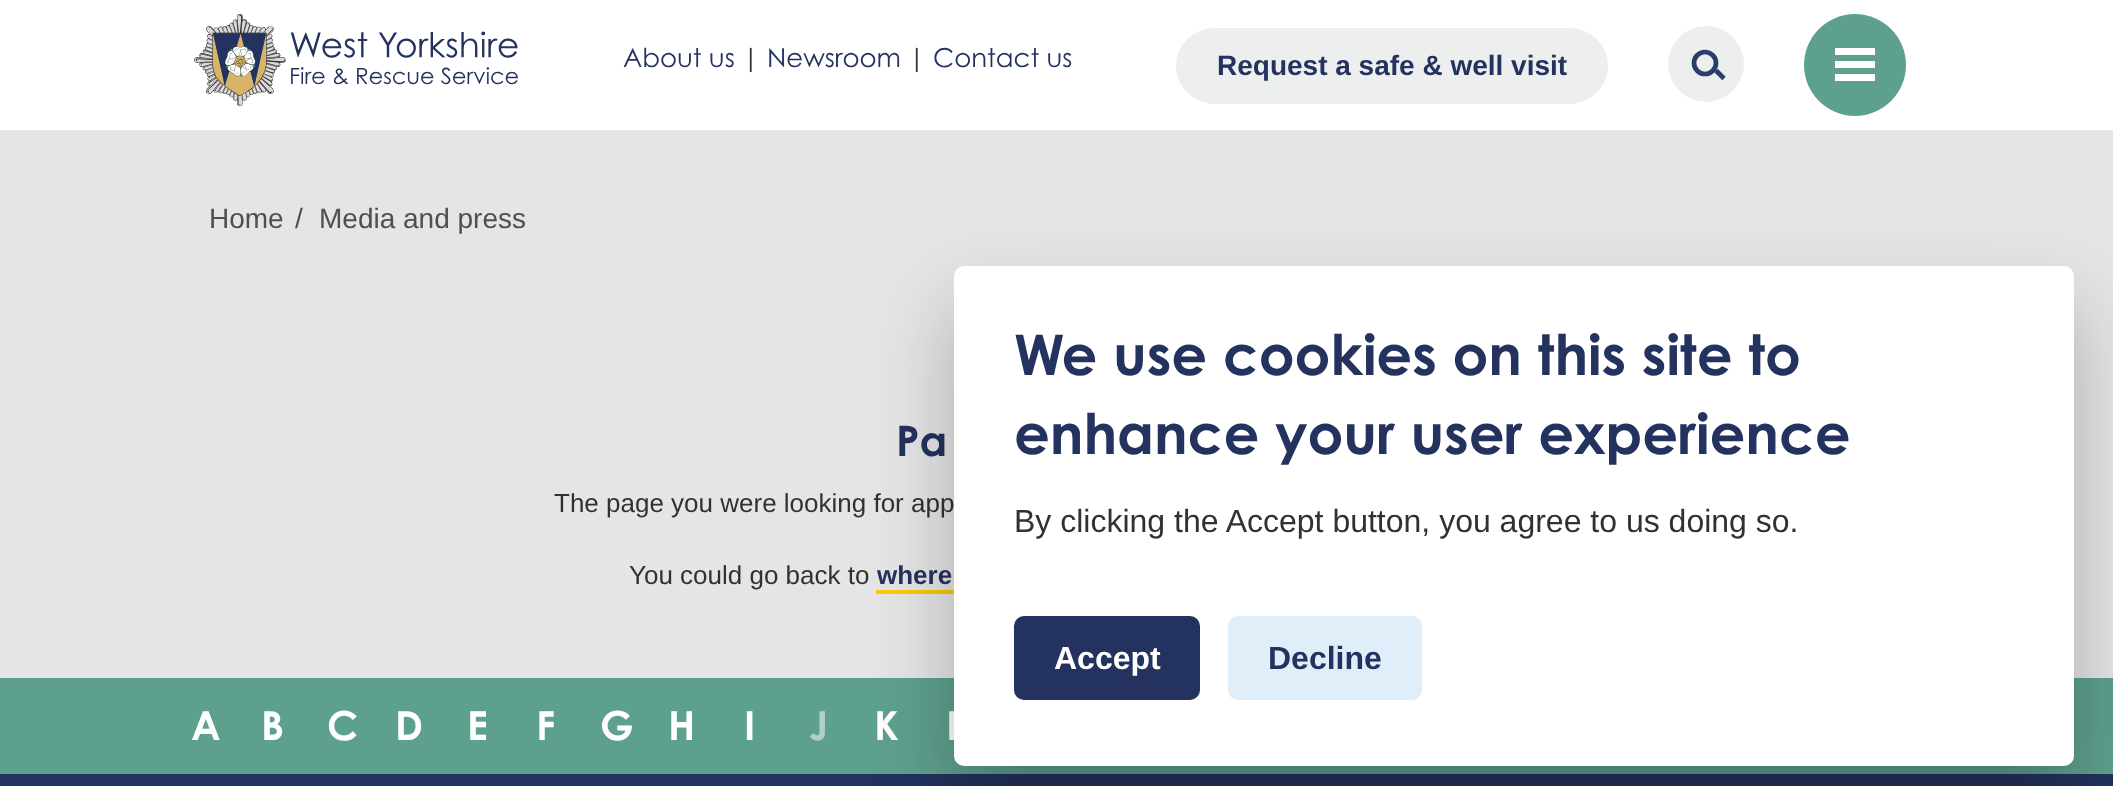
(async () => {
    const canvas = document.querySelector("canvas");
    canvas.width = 2113;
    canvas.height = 786;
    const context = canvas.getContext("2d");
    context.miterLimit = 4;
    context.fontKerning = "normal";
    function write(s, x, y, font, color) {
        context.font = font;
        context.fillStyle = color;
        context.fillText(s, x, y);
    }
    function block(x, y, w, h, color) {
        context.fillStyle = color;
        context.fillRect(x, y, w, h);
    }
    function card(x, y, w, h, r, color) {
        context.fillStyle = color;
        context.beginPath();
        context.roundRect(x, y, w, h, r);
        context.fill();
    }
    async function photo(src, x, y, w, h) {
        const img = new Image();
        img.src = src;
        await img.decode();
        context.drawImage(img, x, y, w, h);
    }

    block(0, 0, 2113, 786, "rgb(229, 229, 229)");
    block(0, 0, 2113, 130, "rgb(255, 255, 255)");
    await photo("media/1.png", 194, 14, 324, 92);
    write("About us", 623, 67, "26px Century Gothic", "rgb(35, 50, 94)");
    write("|", 742, 67, "26px Century Gothic", "rgb(49, 49, 49)");
    write("Newsroom", 767, 67, "26px Century Gothic", "rgb(35, 50, 94)");
    write("|", 908, 67, "26px Century Gothic", "rgb(49, 49, 49)");
    write("Contact us", 933, 67, "26px Century Gothic", "rgb(35, 50, 94)");
    card(1176, 28, 432, 76, 38, "rgb(236, 239, 238)");
    write("Request a safe & well visit", 1217, 75, "bold 28px Liberation Sans", "rgb(35, 50, 94)");
    context.fillStyle = "rgb(236, 239, 238)";
    context.beginPath();
    context.arc(1706, 64, 38, 0, Math.PI * 2);
    context.fill();
    context.beginPath();
    context.arc(1705, 63, 11, 0, Math.PI * 2);
    context.strokeStyle = "rgb(41, 62, 107)";
    context.lineWidth = 4.7;
    context.stroke();
    context.beginPath();
    context.moveTo(1716, 70.5);
    context.lineTo(1724, 78.5);
    context.stroke();
    context.fillStyle = "rgb(94, 160, 142)";
    context.beginPath();
    context.arc(1855, 65, 51, 0, Math.PI * 2);
    context.fill();
    block(1835, 48, 40, 7, "rgb(255, 255, 255)");
    block(1835, 61, 40, 7, "rgb(255, 255, 255)");
    block(1835, 74, 40, 7, "rgb(255, 255, 255)");
    write("Home", 209, 228, "28px Liberation Sans", "rgb(79, 79, 79)");
    write("/", 295, 228, "28px Liberation Sans", "rgb(79, 79, 79)");
    write("Media and press", 319, 228, "28px Liberation Sans", "rgb(79, 79, 79)");
    write("Pa", 896, 456, "bold 42px Century Gothic", "rgb(35, 50, 94)");
    write("The page you were looking for app", 554, 512, "26px Liberation Sans", "rgb(49, 49, 49)");
    write("You could go back to", 629, 584, "26px Liberation Sans", "rgb(49, 49, 49)");
    write("where", 877, 584, "bold 26px Liberation Sans", "rgb(35, 50, 94)");
    block(876, 590, 78, 4, "rgb(248, 203, 0)");
    block(0, 774, 2113, 12, "rgb(35, 50, 94)");
    block(0, 678, 2113, 96, "rgb(94, 160, 142)");
    write("A", 191, 740, "bold 40px Century Gothic", "rgb(255, 255, 255)");
    write("B", 261, 740, "bold 40px Century Gothic", "rgb(255, 255, 255)");
    write("C", 327, 740, "bold 40px Century Gothic", "rgb(255, 255, 255)");
    write("D", 395, 740, "bold 40px Century Gothic", "rgb(255, 255, 255)");
    write("E", 467, 740, "bold 40px Century Gothic", "rgb(255, 255, 255)");
    write("F", 536, 740, "bold 40px Century Gothic", "rgb(255, 255, 255)");
    write("G", 600, 740, "bold 40px Century Gothic", "rgb(255, 255, 255)");
    write("H", 668, 740, "bold 40px Century Gothic", "rgb(255, 255, 255)");
    write("I", 744, 740, "bold 40px Century Gothic", "rgb(255, 255, 255)");
    write("J", 809, 740, "bold 40px Century Gothic", "rgb(175, 208, 199)");
    write("K", 874, 740, "bold 40px Century Gothic", "rgb(255, 255, 255)");
    write("L", 946, 740, "bold 40px Century Gothic", "rgb(255, 255, 255)");
    context.fillStyle = "rgba(0, 0, 0, 0.25)";
    context.filter = "blur(40px)";
    context.beginPath();
    context.roundRect(954, 306, 1120, 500, 10);
    context.fill();
    context.filter = "none";
    card(954, 266, 1120, 500, 10, "rgb(255, 255, 255)");
    write("We use cookies on this site to", 1014, 375, "bold 56px Century Gothic", "rgb(35, 50, 94)");
    write("enhance your user experience", 1014, 454, "bold 56px Century Gothic", "rgb(35, 50, 94)");
    write("By clicking the Accept button, you agree to us doing so.", 1014, 532, "32px Liberation Sans", "rgb(49, 49, 49)");
    card(1014, 616, 186, 84, 10, "rgb(35, 50, 94)");
    write("Accept", 1054, 669, "bold 32px Liberation Sans", "rgb(255, 255, 255)");
    card(1228, 616, 194, 84, 10, "rgb(223, 238, 249)");
    write("Decline", 1268, 669, "bold 32px Liberation Sans", "rgb(35, 50, 94)");
})();
